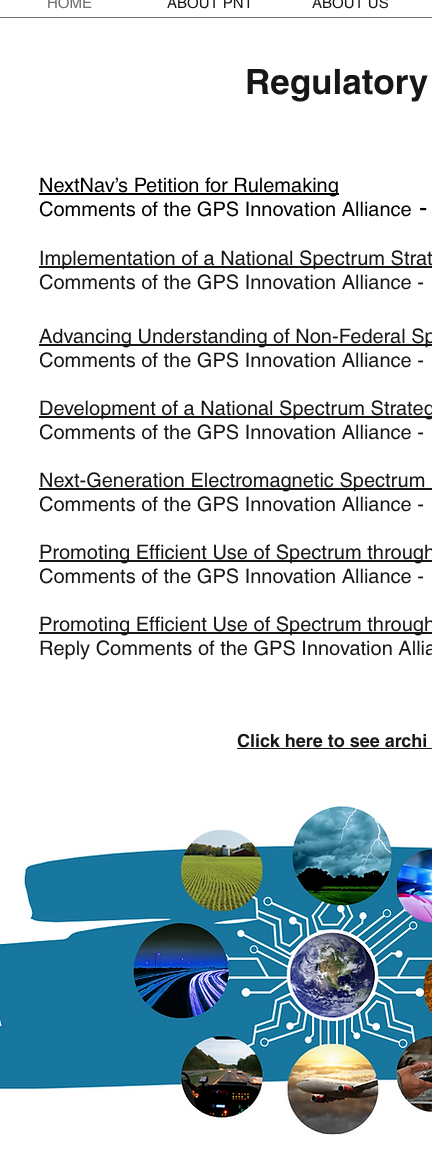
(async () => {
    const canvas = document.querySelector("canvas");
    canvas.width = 432;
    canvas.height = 1165;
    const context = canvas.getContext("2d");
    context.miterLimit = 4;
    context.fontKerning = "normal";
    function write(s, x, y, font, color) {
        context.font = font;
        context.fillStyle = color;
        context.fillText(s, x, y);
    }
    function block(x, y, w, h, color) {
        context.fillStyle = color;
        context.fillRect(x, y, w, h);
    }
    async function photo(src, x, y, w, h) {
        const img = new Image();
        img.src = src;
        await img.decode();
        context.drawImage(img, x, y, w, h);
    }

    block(0, 0, 432, 1165, "rgb(255, 255, 255)");
    block(0, 17, 432, 1, "rgb(112, 112, 112)");
    write("HOME", 47, 8, "15px helvetica", "rgb(112, 112, 112)");
    write("ABOUT PNT", 167, 8, "15px helvetica", "rgb(23, 23, 23)");
    write("ABOUT US", 312, 8, "15px helvetica", "rgb(23, 23, 23)");
    write("Regulatory", 245, 94, "bold 35px helvetica", "rgb(23, 23, 23)");
    block(39, 193, 300, 2, "rgb(0, 0, 0)");
    write("NextNav’s Petition for Rulemaking", 39, 192, "20px helvetica", "rgb(0, 0, 0)");
    write("Comments of the GPS Innovation Alliance", 39, 216, "20px helvetica", "rgb(0, 0, 0)");
    write("-", 419, 216, "25px helvetica", "rgb(0, 0, 0)");
    block(39, 266, 393, 2, "rgb(23, 23, 23)");
    write("Implementation of a National Spectrum Strat", 39, 265, "20px helvetica", "rgb(23, 23, 23)");
    write("Comments of the GPS Innovation Alliance -", 39, 289, "20px helvetica", "rgb(23, 23, 23)");
    block(39, 344, 393, 2, "rgb(23, 23, 23)");
    write("Advancing Understanding of Non-Federal Sp", 39, 343, "20px helvetica", "rgb(23, 23, 23)");
    write("Comments of the GPS Innovation Alliance -", 39, 367, "20px helvetica", "rgb(23, 23, 23)");
    block(39, 416, 393, 2, "rgb(23, 23, 23)");
    write("Development of a National Spectrum Strateg", 39, 415, "20px helvetica", "rgb(23, 23, 23)");
    write("Comments of the GPS Innovation Alliance -", 39, 439, "20px helvetica", "rgb(23, 23, 23)");
    block(39, 488, 393, 2, "rgb(23, 23, 23)");
    write("Next-Generation Electromagnetic Spectrum", 39, 487, "20px helvetica", "rgb(23, 23, 23)");
    write("Comments of the GPS Innovation Alliance -", 39, 511, "20px helvetica", "rgb(23, 23, 23)");
    block(39, 560, 393, 2, "rgb(23, 23, 23)");
    write("Promoting Efficient Use of Spectrum through", 39, 559, "20px helvetica", "rgb(23, 23, 23)");
    write("Comments of the GPS Innovation Alliance -", 39, 583, "20px helvetica", "rgb(23, 23, 23)");
    block(39, 632, 393, 2, "rgb(23, 23, 23)");
    write("Promoting Efficient Use of Spectrum through", 39, 631, "20px helvetica", "rgb(23, 23, 23)");
    write("Reply Comments of the GPS Innovation Allia", 39, 655, "20px helvetica", "rgb(23, 23, 23)");
    write("Click here to see archi", 237, 747, "bold 18px helvetica", "rgb(23, 23, 23)");
    block(237, 748, 195, 1, "rgb(23, 23, 23)");
    await photo("media/1.png", 0, 806, 432, 329);
})();
